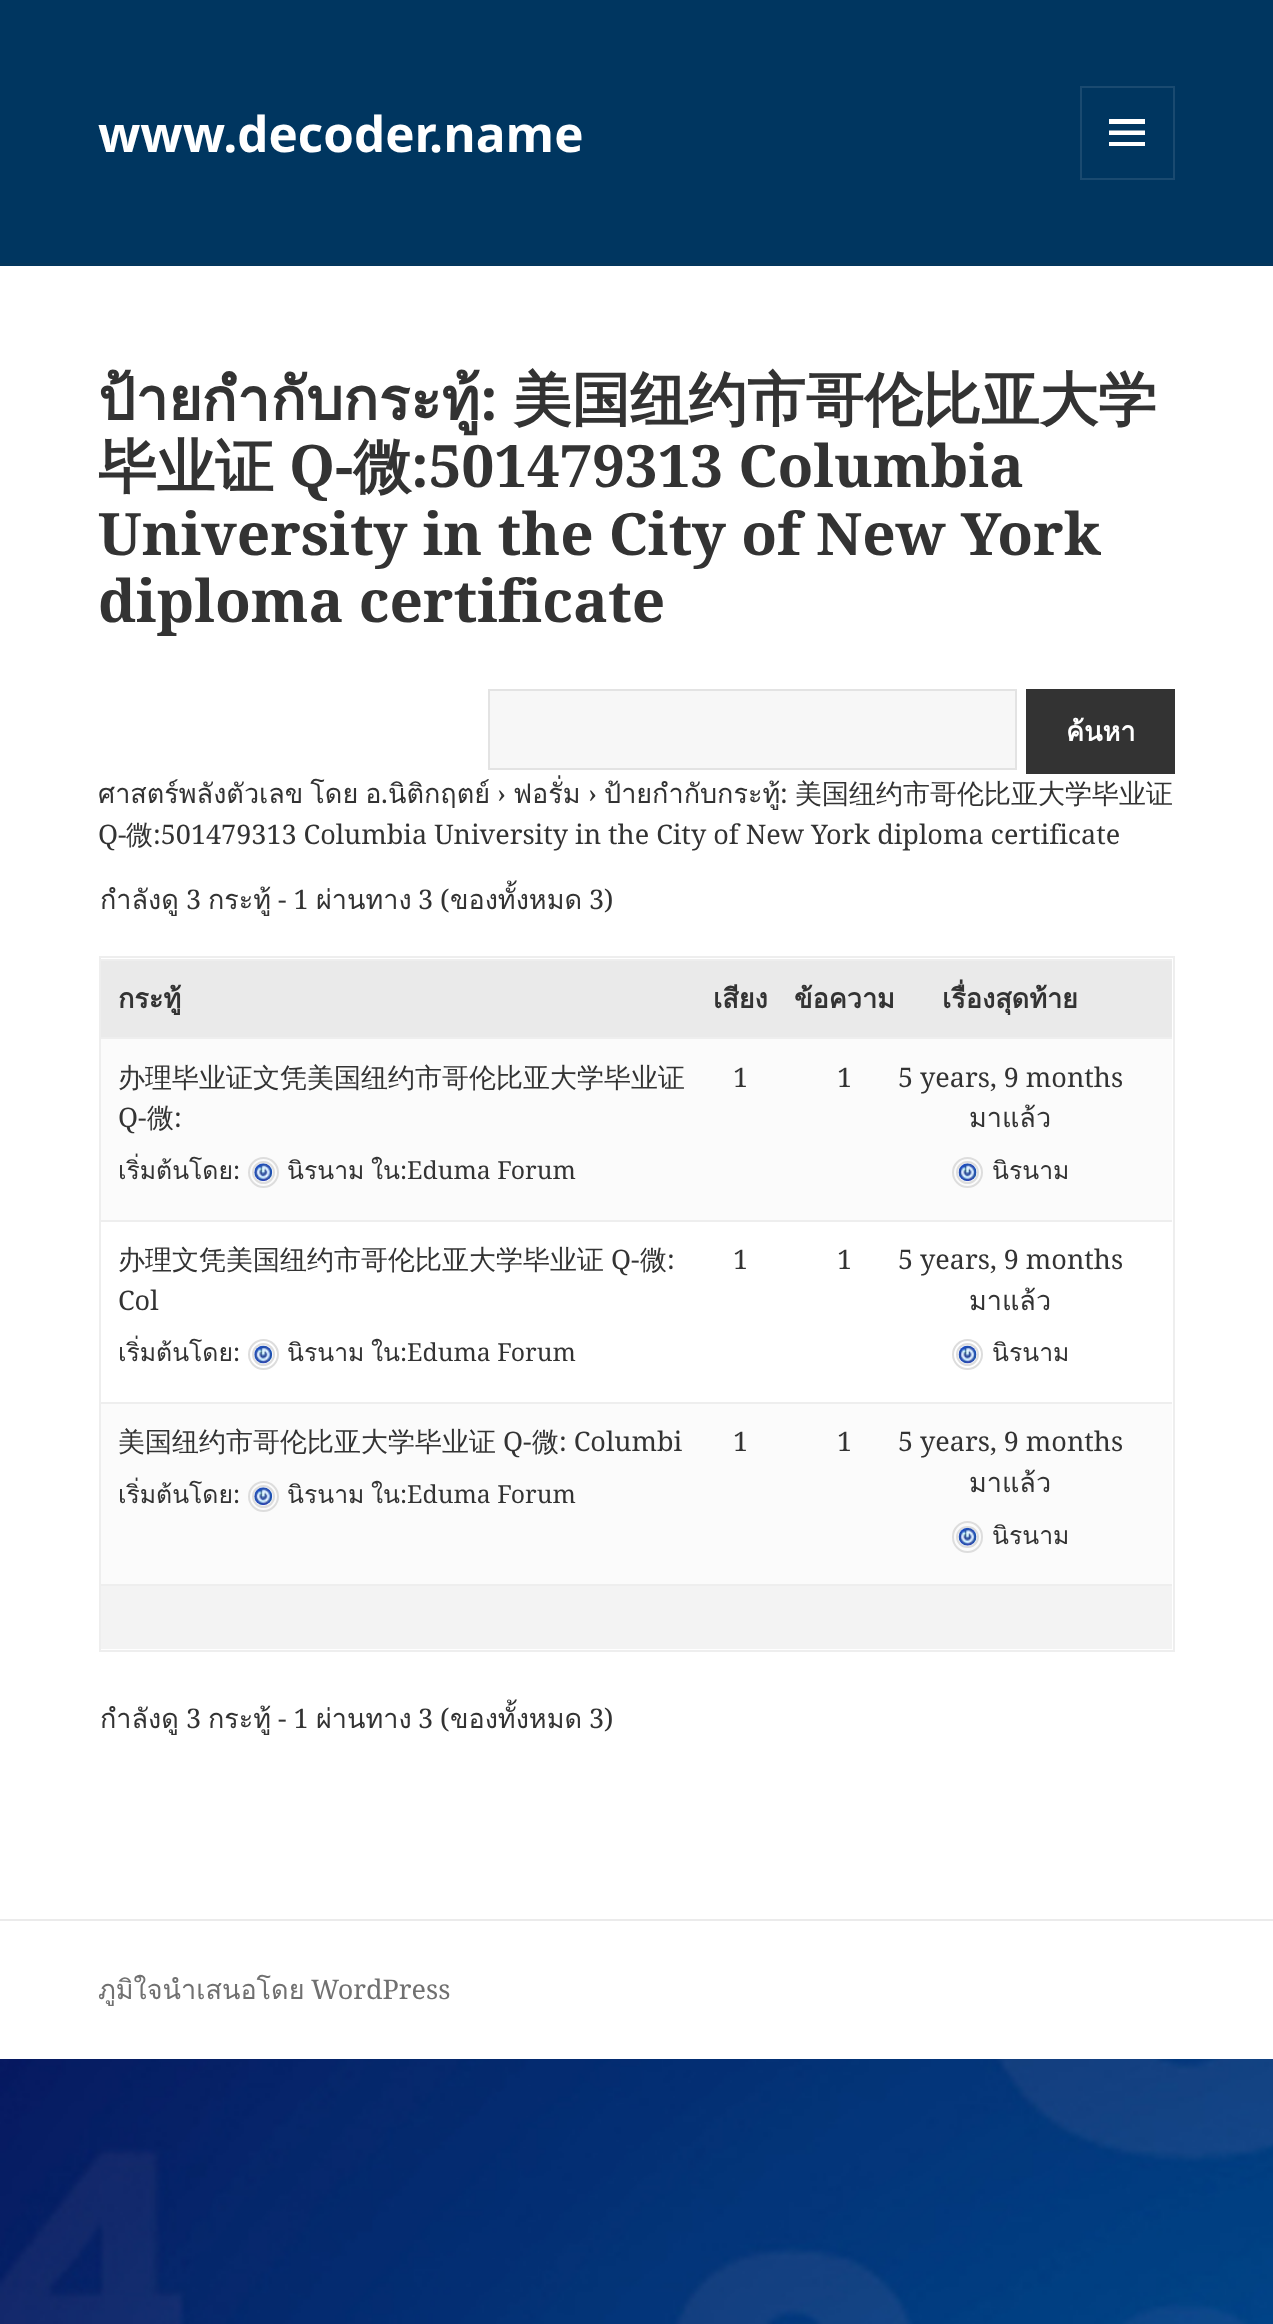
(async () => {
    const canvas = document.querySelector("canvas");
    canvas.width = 1273;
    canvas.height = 2324;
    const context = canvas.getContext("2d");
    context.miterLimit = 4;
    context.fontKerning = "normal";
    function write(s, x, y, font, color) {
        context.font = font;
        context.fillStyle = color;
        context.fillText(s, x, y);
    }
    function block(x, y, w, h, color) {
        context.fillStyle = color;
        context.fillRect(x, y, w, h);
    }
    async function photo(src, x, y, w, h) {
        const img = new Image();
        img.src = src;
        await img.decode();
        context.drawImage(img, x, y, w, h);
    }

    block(0, 0, 1273, 2324, "rgb(255, 255, 255)");
    await photo("media/1.png", 0, 2059, 1273, 265);
    block(0, 0, 1273, 266, "rgb(0, 54, 96)");
    block(0, 263, 1273, 2, "rgb(5, 54, 91)");
    write("www.decoder.name", 98, 152, "bold 49.5px Noto Sans", "rgb(255, 255, 255)");
    context.strokeStyle = "rgb(26, 74, 112)";
    context.lineWidth = 2;
    context.strokeRect(1081, 87, 93, 92);
    context.beginPath();
    context.moveTo(1109, 146);
    context.lineTo(1109, 142);
    context.lineTo(1145, 142);
    context.lineTo(1145, 146);
    context.closePath();
    context.moveTo(1109, 119);
    context.lineTo(1145, 119);
    context.lineTo(1145, 124);
    context.lineTo(1109, 124);
    context.closePath();
    context.moveTo(1109, 135);
    context.lineTo(1109, 130.5);
    context.lineTo(1145, 130.5);
    context.lineTo(1145, 135);
    context.closePath();
    context.fill();
    write("ป้ายกำกับกระทู้", 98, 420, "bold 58.5px Loma", "rgb(51, 51, 51)");
    write(":", 480, 420, "bold 58.5px Noto Serif", "rgb(51, 51, 51)");
    write("美国纽约市哥伦比亚大学", 513, 420, "bold 58.5px WenQuanYi Zen Hei", "rgb(51, 51, 51)");
    write("毕业证", 98, 487, "bold 58.5px WenQuanYi Zen Hei", "rgb(51, 51, 51)");
    write("Q-", 289, 487, "bold 58.5px Noto Serif", "rgb(51, 51, 51)");
    write("微", 353, 487, "bold 58.5px WenQuanYi Zen Hei", "rgb(51, 51, 51)");
    write(":501479313 Columbia", 411, 487, "bold 58.5px Noto Serif", "rgb(51, 51, 51)");
    write("University in the City of New York", 98, 555, "bold 58.5px Noto Serif", "rgb(51, 51, 51)");
    write("diploma certificate", 98, 622, "bold 58.5px Noto Serif", "rgb(51, 51, 51)");
    context.fillStyle = "rgb(247, 247, 247)";
    context.beginPath();
    context.rect(489, 690, 527, 79);
    context.fill();
    context.strokeStyle = "rgb(227, 227, 227)";
    context.stroke();
    block(1026, 689, 149, 85, "rgb(51, 51, 51)");
    write("ค้นหา", 1066, 741, "bold 27px Loma", "rgb(255, 255, 255)");
    context.wordSpacing = "-2px";
    write("ศาสตร์พลังตัวเลข โดย อ", 98, 803, "27px Loma", "rgb(51, 51, 51)");
    context.wordSpacing = "0px";
    write(".", 381, 803, "27px Noto Serif", "rgb(51, 51, 51)");
    write("นิติกฤตย์", 388, 803, "27px Loma", "rgb(51, 51, 51)");
    write("›", 497, 803, "27px Noto Serif", "rgb(51, 51, 51)");
    write("ฟอรั่ม", 513, 803, "27px Loma", "rgb(51, 51, 51)");
    write("›", 588, 803, "27px Noto Serif", "rgb(51, 51, 51)");
    write("ป้ายกำกับกระทู้", 604, 803, "27px Loma", "rgb(51, 51, 51)");
    write(":", 780, 803, "27px Noto Serif", "rgb(51, 51, 51)");
    write("美国纽约市哥伦比亚大学毕业证", 795, 803, "500 27px WenQuanYi Zen Hei", "rgb(51, 51, 51)");
    write("Q-", 98, 844, "27px Noto Serif", "rgb(51, 51, 51)");
    write("微", 126, 844, "500 27px WenQuanYi Zen Hei", "rgb(51, 51, 51)");
    write(":501479313 Columbia University in the City of New York diploma certificate", 153, 844, "27px Noto Serif", "rgb(51, 51, 51)");
    context.save();
    context.beginPath();
    context.rect(99, 689, 1076, 1086);
    context.clip();
    write("กำลังดู", 100, 909, "27px Loma", "rgb(51, 51, 51)");
    context.restore();
    write("3", 186, 909, "27px Noto Serif", "rgb(51, 51, 51)");
    write("กระทู้", 208, 909, "27px Loma", "rgb(51, 51, 51)");
    write("- 1", 278, 909, "27px Noto Serif", "rgb(51, 51, 51)");
    write("ผ่านทาง", 316, 909, "27px Loma", "rgb(51, 51, 51)");
    write("3 (", 418, 909, "27px Noto Serif", "rgb(51, 51, 51)");
    write("ของทั้งหมด", 450, 909, "27px Loma", "rgb(51, 51, 51)");
    write("3)", 589, 909, "27px Noto Serif", "rgb(51, 51, 51)");
    context.strokeStyle = "rgb(238, 238, 238)";
    context.strokeRect(100, 957, 1074, 694);
    block(101, 961, 1071, 76, "rgb(234, 234, 234)");
    block(101, 959, 1071, 2, "rgb(238, 238, 238)");
    write("กระทู้", 118, 1008, "bold 27px Loma", "rgb(51, 51, 51)");
    write("เสียง", 713, 1008, "bold 27px Loma", "rgb(51, 51, 51)");
    write("ข้อความ", 794, 1008, "bold 27px Loma", "rgb(51, 51, 51)");
    write("เรื่องสุดท้าย", 942, 1008, "bold 27px Loma", "rgb(51, 51, 51)");
    block(101, 1039, 1071, 181, "rgb(251, 251, 251)");
    block(101, 1037, 1071, 2, "rgb(238, 238, 238)");
    write("办理毕业证文凭美国纽约市哥伦比亚大学毕业证", 118, 1087, "500 27px WenQuanYi Zen Hei", "rgb(51, 51, 51)");
    write("Q-", 118, 1127, "27px Noto Serif", "rgb(51, 51, 51)");
    write("微", 147, 1127, "500 27px WenQuanYi Zen Hei", "rgb(51, 51, 51)");
    write(":", 174, 1127, "27px Noto Serif", "rgb(51, 51, 51)");
    write("เริ่มต้นโดย", 118, 1179, "24.75px Loma", "rgb(51, 51, 51)");
    write(":", 233, 1179, "24.75px Noto Serif", "rgb(51, 51, 51)");
    context.beginPath();
    context.arc(263.5, 1172.5, 14.5, 0, Math.PI * 2);
    context.strokeStyle = "rgb(221, 221, 221)";
    context.stroke();
    context.beginPath();
    context.arc(263.5, 1172.5, 10.5, 0, Math.PI * 2);
    context.stroke();
    await photo("media/2.png", 254, 1163, 19, 19);
    write("นิรนาม", 287, 1179, "24.75px Loma", "rgb(51, 51, 51)");
    write("ใน", 371, 1179, "24.75px Loma", "rgb(51, 51, 51)");
    write(":Eduma Forum", 400, 1179, "24.75px Noto Serif", "rgb(51, 51, 51)");
    write("1", 733, 1087, "27px Noto Serif", "rgb(51, 51, 51)");
    write("1", 837, 1087, "27px Noto Serif", "rgb(51, 51, 51)");
    write("5 years, 9 months", 898, 1087, "27px Noto Serif", "rgb(51, 51, 51)");
    write("มาแล้ว", 969, 1127, "27px Loma", "rgb(51, 51, 51)");
    context.beginPath();
    context.arc(967.5, 1172.5, 14.5, 0, Math.PI * 2);
    context.stroke();
    context.beginPath();
    context.arc(967.5, 1172.5, 10.5, 0, Math.PI * 2);
    context.stroke();
    await photo("media/3.png", 958, 1163, 19, 19);
    write("นิรนาม", 992, 1179, "24.75px Loma", "rgb(51, 51, 51)");
    block(101, 1220, 1071, 2, "rgb(238, 238, 238)");
    write("办理文凭美国纽约市哥伦比亚大学毕业证", 118, 1269, "500 27px WenQuanYi Zen Hei", "rgb(51, 51, 51)");
    write("Q-", 611, 1269, "27px Noto Serif", "rgb(51, 51, 51)");
    write("微", 640, 1269, "500 27px WenQuanYi Zen Hei", "rgb(51, 51, 51)");
    write(":", 667, 1269, "27px Noto Serif", "rgb(51, 51, 51)");
    write("Col", 118, 1310, "27px Noto Serif", "rgb(51, 51, 51)");
    write("เริ่มต้นโดย", 118, 1361, "24.75px Loma", "rgb(51, 51, 51)");
    write(":", 233, 1361, "24.75px Noto Serif", "rgb(51, 51, 51)");
    context.beginPath();
    context.arc(263.5, 1354.5, 14.5, 0, Math.PI * 2);
    context.stroke();
    context.beginPath();
    context.arc(263.5, 1354.5, 10.5, 0, Math.PI * 2);
    context.stroke();
    await photo("media/4.png", 254, 1345, 19, 19);
    write("นิรนาม", 287, 1361, "24.75px Loma", "rgb(51, 51, 51)");
    write("ใน", 371, 1361, "24.75px Loma", "rgb(51, 51, 51)");
    write(":Eduma Forum", 400, 1361, "24.75px Noto Serif", "rgb(51, 51, 51)");
    write("1", 733, 1269, "27px Noto Serif", "rgb(51, 51, 51)");
    write("1", 837, 1269, "27px Noto Serif", "rgb(51, 51, 51)");
    write("5 years, 9 months", 898, 1269, "27px Noto Serif", "rgb(51, 51, 51)");
    write("มาแล้ว", 969, 1310, "27px Loma", "rgb(51, 51, 51)");
    context.beginPath();
    context.arc(967.5, 1354.5, 14.5, 0, Math.PI * 2);
    context.stroke();
    context.beginPath();
    context.arc(967.5, 1354.5, 10.5, 0, Math.PI * 2);
    context.stroke();
    await photo("media/5.png", 958, 1345, 19, 19);
    write("นิรนาม", 992, 1361, "24.75px Loma", "rgb(51, 51, 51)");
    block(101, 1404, 1071, 180, "rgb(251, 251, 251)");
    block(101, 1402, 1071, 2, "rgb(238, 238, 238)");
    write("美国纽约市哥伦比亚大学毕业证", 118, 1451, "500 27px WenQuanYi Zen Hei", "rgb(51, 51, 51)");
    write("Q-", 503, 1451, "27px Noto Serif", "rgb(51, 51, 51)");
    write("微", 532, 1451, "500 27px WenQuanYi Zen Hei", "rgb(51, 51, 51)");
    write(": Columbi", 559, 1451, "27px Noto Serif", "rgb(51, 51, 51)");
    write("เริ่มต้นโดย", 118, 1503, "24.75px Loma", "rgb(51, 51, 51)");
    write(":", 233, 1503, "24.75px Noto Serif", "rgb(51, 51, 51)");
    context.beginPath();
    context.arc(263.5, 1496.5, 14.5, 0, Math.PI * 2);
    context.stroke();
    context.beginPath();
    context.arc(263.5, 1496.5, 10.5, 0, Math.PI * 2);
    context.stroke();
    await photo("media/2.png", 254, 1487, 19, 19);
    write("นิรนาม", 287, 1503, "24.75px Loma", "rgb(51, 51, 51)");
    write("ใน", 371, 1503, "24.75px Loma", "rgb(51, 51, 51)");
    write(":Eduma Forum", 400, 1503, "24.75px Noto Serif", "rgb(51, 51, 51)");
    write("1", 733, 1451, "27px Noto Serif", "rgb(51, 51, 51)");
    write("1", 837, 1451, "27px Noto Serif", "rgb(51, 51, 51)");
    write("5 years, 9 months", 898, 1451, "27px Noto Serif", "rgb(51, 51, 51)");
    write("มาแล้ว", 969, 1492, "27px Loma", "rgb(51, 51, 51)");
    context.beginPath();
    context.roundRect(953, 1522, 29, 30, 14.5);
    context.stroke();
    context.beginPath();
    context.roundRect(957, 1527, 21, 20, 10);
    context.stroke();
    await photo("media/6.png", 958, 1527, 19, 19);
    write("นิรนาม", 992, 1544, "24.75px Loma", "rgb(51, 51, 51)");
    block(101, 1586, 1071, 63, "rgb(243, 243, 243)");
    block(101, 1584, 1071, 2, "rgb(238, 238, 238)");
    context.save();
    context.beginPath();
    context.rect(99, 689, 1076, 1086);
    context.clip();
    write("กำลังดู", 100, 1728, "27px Loma", "rgb(51, 51, 51)");
    context.restore();
    write("3", 186, 1728, "27px Noto Serif", "rgb(51, 51, 51)");
    write("กระทู้", 208, 1728, "27px Loma", "rgb(51, 51, 51)");
    write("- 1", 278, 1728, "27px Noto Serif", "rgb(51, 51, 51)");
    write("ผ่านทาง", 316, 1728, "27px Loma", "rgb(51, 51, 51)");
    write("3 (", 418, 1728, "27px Noto Serif", "rgb(51, 51, 51)");
    write("ของทั้งหมด", 450, 1728, "27px Loma", "rgb(51, 51, 51)");
    write("3)", 589, 1728, "27px Noto Serif", "rgb(51, 51, 51)");
    block(0, 1919, 1273, 2, "rgb(235, 235, 235)");
    write("ภูมิใจนำเสนอโดย", 98, 1999, "27px Loma", "rgb(112, 112, 112)");
    write("WordPress", 311, 1999, "27px Noto Serif", "rgb(112, 112, 112)");
})();
